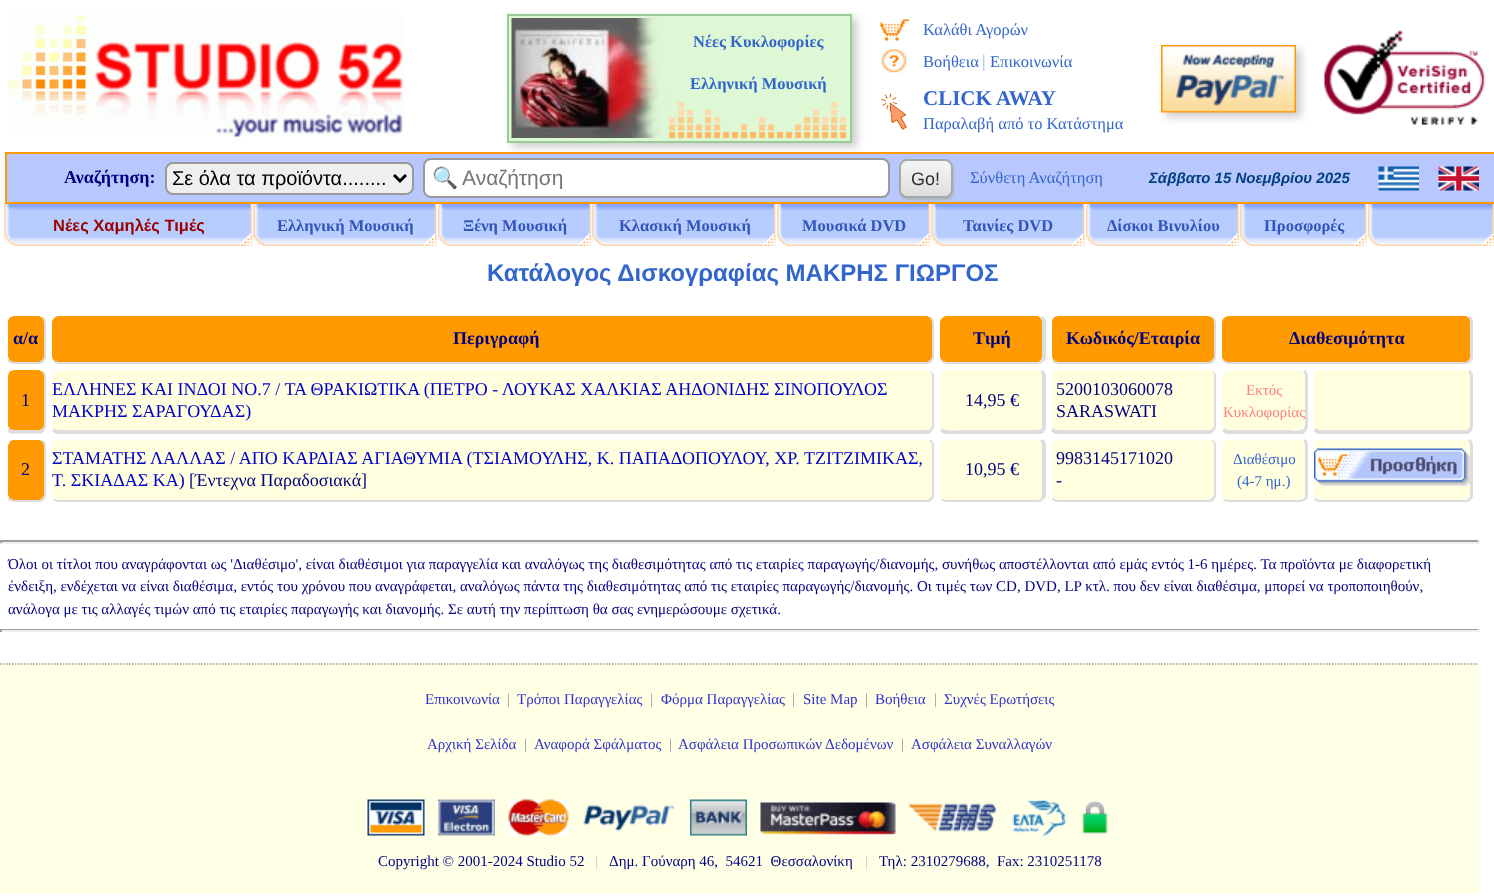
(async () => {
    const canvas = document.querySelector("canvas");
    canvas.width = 1494;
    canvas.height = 896;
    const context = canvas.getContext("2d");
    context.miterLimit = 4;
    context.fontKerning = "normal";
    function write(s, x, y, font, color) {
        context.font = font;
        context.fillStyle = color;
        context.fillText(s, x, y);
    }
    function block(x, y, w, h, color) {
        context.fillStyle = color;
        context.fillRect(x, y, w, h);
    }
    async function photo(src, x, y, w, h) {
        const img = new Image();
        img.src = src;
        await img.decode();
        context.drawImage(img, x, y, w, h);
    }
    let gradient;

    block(0, 0, 1494, 896, "rgb(255, 255, 255)");
    await photo("media/1.png", 8, 15, 396, 122);
    context.fillStyle = "rgb(204, 204, 204)";
    context.filter = "blur(4px)";
    context.beginPath();
    context.rect(512, 18, 345, 129);
    context.fill();
    context.filter = "none";
    await photo("media/2.png", 507, 13, 345, 128);
    context.strokeStyle = "rgb(153, 204, 153)";
    context.lineWidth = 2;
    context.strokeRect(508, 15, 343, 127);
    await photo("media/3.png", 511, 18, 158, 120);
    write("Νέες Κυκλοφορίες", 693, 47, "bold 16.5px Liberation Serif", "rgb(51, 102, 204)");
    write("Ελληνική Μουσική", 690, 89, "bold 16.5px Liberation Serif", "rgb(51, 102, 204)");
    await photo("media/4.png", 880, 19, 29, 22);
    write("Καλάθι Αγορών", 923, 35, "16.5px Liberation Serif", "rgb(51, 102, 204)");
    await photo("media/5.png", 881, 49, 26, 24);
    write("Βοήθεια", 923, 67, "16.5px Liberation Serif", "rgb(51, 102, 204)");
    write("|", 982, 67, "18px Liberation Serif", "rgb(153, 178, 230)");
    write("Επικοινωνία", 990, 67, "16.5px Liberation Serif", "rgb(51, 102, 204)");
    await photo("media/6.png", 881, 93, 26, 37);
    write("CLICK AWAY", 923, 105, "bold 21px Liberation Serif", "rgb(51, 102, 204)");
    write("Παραλαβή από το Κατάστημα", 923, 129, "16.5px Liberation Serif", "rgb(51, 102, 204)");
    context.fillStyle = "rgb(204, 204, 204)";
    context.filter = "blur(4px)";
    context.beginPath();
    context.rect(1166, 50, 135, 67);
    context.fill();
    context.filter = "none";
    await photo("media/7.png", 1161, 45, 135, 68);
    await photo("media/8.png", 1323, 29, 163, 96);
    context.fillStyle = "rgb(184, 200, 255)";
    context.beginPath();
    context.rect(6, 153, 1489, 50);
    context.fill();
    context.strokeStyle = "rgb(255, 153, 0)";
    context.stroke();
    write("Αναζήτηση:", 64, 183, "bold 18px Liberation Serif", "rgb(0, 0, 128)");
    context.fillStyle = "rgb(239, 239, 239)";
    context.beginPath();
    context.roundRect(166, 163, 247, 31, 7);
    context.fill();
    context.strokeStyle = "rgb(153, 153, 153)";
    context.stroke();
    context.beginPath();
    context.moveTo(394, 175);
    context.lineTo(400, 181);
    context.lineTo(406, 175);
    context.strokeStyle = "rgb(0, 0, 0)";
    context.lineWidth = 3;
    context.stroke();
    write("Σε όλα τα προϊόντα........", 172, 185, "20px Liberation Sans", "rgb(0, 0, 0)");
    context.fillStyle = "rgb(255, 255, 255)";
    context.beginPath();
    context.roundRect(424, 159, 465, 38, 7);
    context.fill();
    context.strokeStyle = "rgb(153, 153, 153)";
    context.lineWidth = 2;
    context.stroke();
    context.save();
    context.beginPath();
    context.rect(432, 165, 453, 24);
    context.clip();
    write("🔍", 432, 185, "21px Noto Color Emoji", "rgb(117, 117, 117)");
    write("Αναζήτηση", 462, 185, "21px Liberation Sans", "rgb(117, 117, 117)");
    context.restore();
    context.fillStyle = "rgb(180, 181, 181)";
    context.filter = "blur(1px)";
    context.beginPath();
    context.roundRect(900, 161, 54, 39, 8);
    context.fill();
    context.filter = "none";
    context.save();
    context.beginPath();
    context.roundRect(899, 159, 54, 39, 8);
    context.clip();
    gradient = context.createLinearGradient(926, 161, 926, 197);
    gradient.addColorStop(0, "rgb(244, 245, 245)");
    gradient.addColorStop(1, "rgb(223, 221, 221)");
    context.fillStyle = gradient;
    context.fillRect(899, 161, 54, 36);
    context.restore();
    context.beginPath();
    context.roundRect(900, 160, 52, 37, 7);
    context.strokeStyle = "rgb(162, 169, 169)";
    context.stroke();
    write("Go!", 911, 185, "18px Liberation Sans", "rgb(48, 48, 48)");
    write("Σύνθετη Αναζήτηση", 970, 183, "16.5px Liberation Serif", "rgb(51, 102, 204)");
    write("Σάββατο 15 Νοεμβρίου 2025", 1149, 183, "italic bold 15px Liberation Sans", "rgb(0, 64, 128)");
    await photo("media/9.png", 1378, 166, 41, 25);
    await photo("media/10.png", 1438, 166, 41, 25);
    await photo("media/11.png", 4, 204, 1237, 41);
    await photo("media/12.png", 4, 204, 250, 42);
    write("Νέες Χαμηλές Τιμές", 53, 231, "bold 16.5px Liberation Sans", "rgb(153, 0, 0)");
    await photo("media/13.png", 253, 204, 185, 42);
    write("Ελληνική Μουσική", 277, 231, "bold 16.5px Liberation Serif", "rgb(51, 85, 187)");
    await photo("media/14.png", 438, 204, 155, 42);
    write("Ξένη Μουσική", 463, 231, "bold 16.5px Liberation Serif", "rgb(51, 85, 187)");
    await photo("media/15.png", 592, 204, 185, 42);
    write("Κλασική Μουσική", 619, 231, "bold 16.5px Liberation Serif", "rgb(51, 85, 187)");
    await photo("media/16.png", 777, 204, 155, 42);
    write("Μουσικά DVD", 802, 231, "bold 16.5px Liberation Serif", "rgb(51, 85, 187)");
    await photo("media/17.png", 931, 204, 155, 42);
    write("Ταινίες DVD", 963, 231, "bold 16.5px Liberation Serif", "rgb(51, 85, 187)");
    await photo("media/14.png", 1086, 204, 155, 42);
    write("Δίσκοι Βινυλίου", 1107, 231, "bold 16.5px Liberation Serif", "rgb(51, 85, 187)");
    await photo("media/18.png", 1240, 204, 128, 42);
    write("Προσφορές", 1264, 231, "bold 16.5px Liberation Serif", "rgb(51, 85, 187)");
    await photo("media/19.png", 1368, 204, 126, 42);
    write("Κατάλογος Δισκογραφίας ΜΑΚΡΗΣ ΓΙΩΡΓΟΣ", 487, 281, "bold 24px Liberation Sans", "rgb(51, 102, 204)");
    context.fillStyle = "rgb(255, 153, 0)";
    context.beginPath();
    context.moveTo(14, 316);
    context.lineTo(39, 316);
    context.bezierCurveTo(41, 316, 44, 319, 44, 322);
    context.lineTo(44, 357);
    context.bezierCurveTo(44, 359, 41, 362, 39, 362);
    context.lineTo(14, 362);
    context.bezierCurveTo(10, 362, 8, 359, 8, 357);
    context.lineTo(8, 322);
    context.bezierCurveTo(8, 319, 10, 316, 14, 316);
    context.closePath();
    context.fill();
    context.fillStyle = "rgb(255, 255, 255)";
    context.beginPath();
    context.moveTo(14, 315);
    context.bezierCurveTo(11.5, 315, 9.5, 316, 8, 317);
    context.lineTo(9, 318);
    context.bezierCurveTo(10, 317, 12, 316, 14, 316);
    context.lineTo(39, 316);
    context.bezierCurveTo(40, 316, 41, 316.5, 42, 317.5);
    context.lineTo(43.5, 316.5);
    context.bezierCurveTo(42.5, 315.5, 40.5, 315, 39, 315);
    context.closePath();
    context.fill();
    context.fillStyle = "rgb(221, 221, 221)";
    context.beginPath();
    context.moveTo(43, 317);
    context.bezierCurveTo(45, 318, 46, 320, 46, 322);
    context.lineTo(46, 357);
    context.bezierCurveTo(46, 359, 45, 361, 44, 362);
    context.lineTo(42, 360);
    context.bezierCurveTo(43, 359, 44, 358, 44, 357);
    context.lineTo(44, 322);
    context.bezierCurveTo(44, 320, 43, 319, 42, 317);
    context.closePath();
    context.fill();
    context.beginPath();
    context.moveTo(44, 362);
    context.bezierCurveTo(43, 363, 41, 364, 39, 364);
    context.lineTo(14, 364);
    context.bezierCurveTo(11, 364, 9, 363, 7.5, 361.5);
    context.lineTo(8.5, 359);
    context.bezierCurveTo(9.5, 360.5, 11.5, 362, 14, 362);
    context.lineTo(39, 362);
    context.bezierCurveTo(40, 362, 41, 361, 42, 360);
    context.closePath();
    context.fill();
    context.fillStyle = "rgb(255, 255, 255)";
    context.beginPath();
    context.moveTo(6, 322);
    context.lineTo(6, 357);
    context.bezierCurveTo(6, 359, 7, 360, 8, 361);
    context.lineTo(9, 359);
    context.lineTo(8, 357);
    context.lineTo(8, 322);
    context.bezierCurveTo(8, 321, 8, 319, 9, 318);
    context.lineTo(8, 317);
    context.bezierCurveTo(7, 318, 6, 320, 6, 322);
    context.closePath();
    context.fill();
    write("α/α", 13, 344, "bold 18px Liberation Serif", "rgb(0, 0, 128)");
    context.fillStyle = "rgb(255, 153, 0)";
    context.beginPath();
    context.moveTo(58, 316);
    context.lineTo(927, 316);
    context.bezierCurveTo(929, 316, 932, 319, 932, 322);
    context.lineTo(932, 357);
    context.bezierCurveTo(932, 359, 929, 362, 927, 362);
    context.lineTo(58, 362);
    context.bezierCurveTo(55, 362, 52, 359, 52, 357);
    context.lineTo(52, 322);
    context.bezierCurveTo(52, 319, 55, 316, 58, 316);
    context.closePath();
    context.fill();
    context.fillStyle = "rgb(255, 255, 255)";
    context.beginPath();
    context.moveTo(58, 315);
    context.bezierCurveTo(56, 315, 54, 316, 53, 317);
    context.lineTo(54, 318);
    context.bezierCurveTo(55, 317, 56, 316, 58, 316);
    context.lineTo(927, 316);
    context.bezierCurveTo(928, 316, 929, 317, 930, 317);
    context.lineTo(931, 317);
    context.bezierCurveTo(930, 316, 929, 315, 927, 315);
    context.closePath();
    context.fill();
    context.fillStyle = "rgb(221, 221, 221)";
    context.beginPath();
    context.moveTo(931, 317);
    context.bezierCurveTo(933, 318, 934, 320, 934, 322);
    context.lineTo(934, 357);
    context.bezierCurveTo(934, 359, 933, 361, 932, 362);
    context.lineTo(930, 360);
    context.bezierCurveTo(931, 359, 932, 358, 932, 357);
    context.lineTo(932, 322);
    context.bezierCurveTo(932, 320, 931, 319, 930, 317);
    context.closePath();
    context.fill();
    context.beginPath();
    context.moveTo(932, 362);
    context.bezierCurveTo(931, 363, 929, 364, 927, 364);
    context.lineTo(58, 364);
    context.bezierCurveTo(56, 364, 54, 363, 53, 361);
    context.lineTo(53, 360);
    context.bezierCurveTo(55, 361, 56, 362, 58, 362);
    context.lineTo(927, 362);
    context.bezierCurveTo(928, 362, 929, 361, 930, 360);
    context.closePath();
    context.fill();
    context.fillStyle = "rgb(255, 255, 255)";
    context.beginPath();
    context.moveTo(51, 322);
    context.lineTo(51, 357);
    context.bezierCurveTo(51, 359, 52, 360, 53, 361);
    context.lineTo(53, 360);
    context.bezierCurveTo(53, 359, 52, 358, 52, 357);
    context.lineTo(52, 322);
    context.bezierCurveTo(52, 320, 53, 319, 54, 318);
    context.lineTo(53, 317);
    context.bezierCurveTo(52, 318, 51, 320, 51, 322);
    context.closePath();
    context.fill();
    write("Περιγραφή", 453, 344, "bold 18px Liberation Serif", "rgb(0, 0, 128)");
    context.fillStyle = "rgb(255, 153, 0)";
    context.beginPath();
    context.moveTo(946, 316);
    context.lineTo(1038, 316);
    context.bezierCurveTo(1040, 316, 1042, 319, 1042, 322);
    context.lineTo(1042, 357);
    context.bezierCurveTo(1042, 359, 1040, 362, 1038, 362);
    context.lineTo(946, 362);
    context.bezierCurveTo(943, 362, 940, 359, 940, 357);
    context.lineTo(940, 322);
    context.bezierCurveTo(940, 319, 943, 316, 946, 316);
    context.closePath();
    context.fill();
    context.fillStyle = "rgb(255, 255, 255)";
    context.beginPath();
    context.moveTo(946, 315);
    context.bezierCurveTo(944, 315, 942, 316, 941, 317);
    context.lineTo(942, 318);
    context.bezierCurveTo(943, 317, 944, 316, 946, 316);
    context.lineTo(1038, 316);
    context.bezierCurveTo(1039, 316, 1040, 317, 1040, 318);
    context.lineTo(1043, 316);
    context.bezierCurveTo(1041, 316, 1040, 315, 1038, 315);
    context.closePath();
    context.fill();
    context.fillStyle = "rgb(221, 221, 221)";
    context.beginPath();
    context.moveTo(1046, 359);
    context.lineTo(1043, 362);
    context.lineTo(1041, 360);
    context.lineTo(1042, 357);
    context.lineTo(1042, 322);
    context.bezierCurveTo(1042, 320, 1041, 319, 1040, 318);
    context.lineTo(1043, 316);
    context.lineTo(1046, 320);
    context.closePath();
    context.fill();
    context.beginPath();
    context.moveTo(1043, 362);
    context.bezierCurveTo(1042, 363, 1040, 364, 1038, 364);
    context.lineTo(946, 364);
    context.bezierCurveTo(944, 364, 942, 363, 941, 361);
    context.lineTo(941, 360);
    context.bezierCurveTo(943, 361, 944, 362, 946, 362);
    context.lineTo(1038, 362);
    context.bezierCurveTo(1039, 362, 1040, 361, 1041, 360);
    context.closePath();
    context.fill();
    context.fillStyle = "rgb(255, 255, 255)";
    context.beginPath();
    context.moveTo(939, 322);
    context.lineTo(939, 357);
    context.bezierCurveTo(939, 359, 940, 360, 941, 361);
    context.lineTo(941, 360);
    context.bezierCurveTo(941, 359, 940, 358, 940, 357);
    context.lineTo(940, 322);
    context.bezierCurveTo(940, 320, 941, 319, 942, 318);
    context.lineTo(941, 317);
    context.bezierCurveTo(940, 318, 939, 320, 939, 322);
    context.closePath();
    context.fill();
    write("Τιμή", 973, 344, "bold 18px Liberation Serif", "rgb(0, 0, 128)");
    context.fillStyle = "rgb(255, 153, 0)";
    context.beginPath();
    context.moveTo(1058, 316);
    context.lineTo(1209, 316);
    context.bezierCurveTo(1211, 316, 1214, 319, 1214, 322);
    context.lineTo(1214, 357);
    context.bezierCurveTo(1214, 359, 1211, 362, 1209, 362);
    context.lineTo(1058, 362);
    context.bezierCurveTo(1054, 362, 1052, 359, 1052, 357);
    context.lineTo(1052, 322);
    context.bezierCurveTo(1052, 319, 1054, 316, 1058, 316);
    context.closePath();
    context.fill();
    context.fillStyle = "rgb(255, 255, 255)";
    context.beginPath();
    context.moveTo(1058, 315);
    context.bezierCurveTo(1055, 315, 1053, 316, 1052, 317);
    context.lineTo(1053, 318);
    context.bezierCurveTo(1054, 317, 1056, 316, 1058, 316);
    context.lineTo(1209, 316);
    context.lineTo(1212, 317);
    context.lineTo(1213, 317);
    context.bezierCurveTo(1212, 316, 1211, 315, 1209, 315);
    context.closePath();
    context.fill();
    context.fillStyle = "rgb(221, 221, 221)";
    context.beginPath();
    context.moveTo(1213, 317);
    context.bezierCurveTo(1215, 318, 1216, 320, 1216, 322);
    context.lineTo(1216, 357);
    context.bezierCurveTo(1216, 359, 1215, 361, 1214, 362);
    context.lineTo(1212, 360);
    context.bezierCurveTo(1213, 359, 1214, 358, 1214, 357);
    context.lineTo(1214, 322);
    context.bezierCurveTo(1214, 320, 1213, 319, 1212, 317);
    context.closePath();
    context.fill();
    context.beginPath();
    context.moveTo(1214, 362);
    context.bezierCurveTo(1213, 363, 1211, 364, 1209, 364);
    context.lineTo(1058, 364);
    context.bezierCurveTo(1055, 364, 1053, 363, 1052, 361);
    context.lineTo(1053, 359);
    context.bezierCurveTo(1054, 361, 1056, 362, 1058, 362);
    context.lineTo(1209, 362);
    context.lineTo(1212, 360);
    context.closePath();
    context.fill();
    context.fillStyle = "rgb(255, 255, 255)";
    context.beginPath();
    context.moveTo(1050, 322);
    context.lineTo(1050, 357);
    context.bezierCurveTo(1050, 359, 1051, 360, 1052, 361);
    context.lineTo(1053, 359);
    context.lineTo(1052, 357);
    context.lineTo(1052, 322);
    context.bezierCurveTo(1052, 321, 1052, 319, 1053, 318);
    context.lineTo(1052, 317);
    context.bezierCurveTo(1051, 318, 1050, 320, 1050, 322);
    context.closePath();
    context.fill();
    write("Κωδικός/Εταιρία", 1066, 344, "bold 18px Liberation Serif", "rgb(0, 0, 128)");
    context.fillStyle = "rgb(255, 153, 0)";
    context.beginPath();
    context.moveTo(1228, 316);
    context.lineTo(1466, 316);
    context.bezierCurveTo(1468, 316, 1470, 319, 1470, 322);
    context.lineTo(1470, 357);
    context.bezierCurveTo(1470, 359, 1468, 362, 1466, 362);
    context.lineTo(1228, 362);
    context.bezierCurveTo(1225, 362, 1222, 359, 1222, 357);
    context.lineTo(1222, 322);
    context.bezierCurveTo(1222, 319, 1225, 316, 1228, 316);
    context.closePath();
    context.fill();
    context.fillStyle = "rgb(255, 255, 255)";
    context.beginPath();
    context.moveTo(1228, 315);
    context.bezierCurveTo(1226, 315, 1224, 316, 1223, 317);
    context.lineTo(1224, 318);
    context.lineTo(1227, 316);
    context.lineTo(1466, 316);
    context.lineTo(1468, 317);
    context.lineTo(1470, 316);
    context.bezierCurveTo(1469, 316, 1468, 315, 1466, 315);
    context.closePath();
    context.fill();
    context.fillStyle = "rgb(221, 221, 221)";
    context.beginPath();
    context.moveTo(1473, 357);
    context.lineTo(1473, 322);
    context.bezierCurveTo(1473, 320, 1472, 318, 1470, 316);
    context.lineTo(1468, 317);
    context.bezierCurveTo(1469, 318, 1470, 320, 1470, 322);
    context.lineTo(1470, 357);
    context.bezierCurveTo(1470, 358, 1470, 359, 1469, 360);
    context.lineTo(1471, 362);
    context.bezierCurveTo(1472, 361, 1473, 359, 1473, 357);
    context.closePath();
    context.fill();
    context.beginPath();
    context.moveTo(1471, 362);
    context.bezierCurveTo(1470, 363, 1468, 364, 1466, 364);
    context.lineTo(1228, 364);
    context.bezierCurveTo(1226, 364, 1224, 363, 1223, 361);
    context.lineTo(1223, 360);
    context.bezierCurveTo(1225, 361, 1226, 362, 1228, 362);
    context.lineTo(1467, 362);
    context.lineTo(1469, 360);
    context.closePath();
    context.fill();
    context.fillStyle = "rgb(255, 255, 255)";
    context.beginPath();
    context.moveTo(1221, 322);
    context.lineTo(1221, 357);
    context.bezierCurveTo(1221, 359, 1222, 360, 1223, 361);
    context.lineTo(1223, 360);
    context.bezierCurveTo(1223, 359, 1222, 358, 1222, 357);
    context.lineTo(1222, 322);
    context.bezierCurveTo(1222, 320, 1223, 319, 1224, 318);
    context.lineTo(1223, 317);
    context.bezierCurveTo(1222, 318, 1221, 320, 1221, 322);
    context.closePath();
    context.fill();
    write("Διαθεσιμότητα", 1289, 344, "bold 18px Liberation Serif", "rgb(0, 0, 128)");
    context.fillStyle = "rgb(255, 153, 0)";
    context.beginPath();
    context.moveTo(14, 370);
    context.lineTo(39, 370);
    context.bezierCurveTo(41, 370, 44, 373, 44, 376);
    context.lineTo(44, 426);
    context.bezierCurveTo(44, 428, 41, 430, 39, 430);
    context.lineTo(14, 430);
    context.bezierCurveTo(10, 430, 8, 428, 8, 426);
    context.lineTo(8, 376);
    context.bezierCurveTo(8, 373, 10, 370, 14, 370);
    context.closePath();
    context.fill();
    context.fillStyle = "rgb(255, 255, 255)";
    context.beginPath();
    context.moveTo(14, 369);
    context.bezierCurveTo(11.5, 369, 9.5, 370, 8, 371);
    context.lineTo(9, 372);
    context.bezierCurveTo(10, 371, 12, 370, 14, 370);
    context.lineTo(39, 370);
    context.bezierCurveTo(40, 370, 41, 370.5, 42, 371.5);
    context.lineTo(43.5, 370.5);
    context.bezierCurveTo(42.5, 369.5, 40.5, 369, 39, 369);
    context.closePath();
    context.fill();
    context.fillStyle = "rgb(221, 221, 221)";
    context.beginPath();
    context.moveTo(43, 371);
    context.bezierCurveTo(45, 372, 46, 374, 46, 376);
    context.lineTo(46, 426);
    context.bezierCurveTo(46, 428, 45, 430, 44, 431);
    context.lineTo(42, 429);
    context.lineTo(44, 426);
    context.lineTo(44, 375);
    context.bezierCurveTo(44, 374, 43, 372, 42, 371);
    context.closePath();
    context.fill();
    context.beginPath();
    context.moveTo(11, 433.5);
    context.bezierCurveTo(9.5, 433, 8.5, 432, 7.5, 430.5);
    context.lineTo(8.5, 428);
    context.bezierCurveTo(9.5, 429, 11.5, 430, 14, 430);
    context.lineTo(39, 430);
    context.bezierCurveTo(40, 430, 41, 429.5, 42, 429);
    context.lineTo(44, 431);
    context.bezierCurveTo(43.5, 432, 42.5, 433, 41.5, 433.5);
    context.closePath();
    context.fill();
    context.fillStyle = "rgb(255, 255, 255)";
    context.beginPath();
    context.moveTo(6, 376);
    context.lineTo(6, 426);
    context.bezierCurveTo(6, 428, 7, 429, 7, 431);
    context.lineTo(9, 428);
    context.lineTo(8, 426);
    context.lineTo(8, 375);
    context.lineTo(9, 372);
    context.lineTo(8, 371);
    context.bezierCurveTo(7, 372, 6, 374, 6, 376);
    context.closePath();
    context.fill();
    write("1", 21, 406, "18px Liberation Serif", "rgb(0, 0, 128)");
    context.fillStyle = "rgb(255, 255, 223)";
    context.beginPath();
    context.moveTo(58, 370);
    context.lineTo(927, 370);
    context.bezierCurveTo(929, 370, 932, 373, 932, 376);
    context.lineTo(932, 426);
    context.bezierCurveTo(932, 428, 929, 430, 927, 430);
    context.lineTo(58, 430);
    context.bezierCurveTo(55, 430, 52, 428, 52, 426);
    context.lineTo(52, 376);
    context.bezierCurveTo(52, 373, 55, 370, 58, 370);
    context.closePath();
    context.fill();
    context.fillStyle = "rgb(255, 255, 255)";
    context.beginPath();
    context.moveTo(58, 369);
    context.bezierCurveTo(56, 369, 54, 370, 53, 371);
    context.lineTo(54, 372);
    context.bezierCurveTo(55, 371, 56, 370, 58, 370);
    context.lineTo(927, 370);
    context.bezierCurveTo(928, 370, 929, 371, 930, 371);
    context.lineTo(931, 371);
    context.bezierCurveTo(930, 370, 929, 369, 927, 369);
    context.closePath();
    context.fill();
    context.fillStyle = "rgb(221, 221, 221)";
    context.beginPath();
    context.moveTo(931, 371);
    context.bezierCurveTo(933, 372, 934, 374, 934, 376);
    context.lineTo(934, 426);
    context.bezierCurveTo(934, 428, 933, 430, 932, 431);
    context.lineTo(930, 429);
    context.lineTo(932, 426);
    context.lineTo(932, 375);
    context.bezierCurveTo(932, 374, 931, 372, 930, 371);
    context.closePath();
    context.fill();
    context.beginPath();
    context.moveTo(56, 434);
    context.lineTo(52, 431);
    context.lineTo(54, 428);
    context.bezierCurveTo(55, 429, 56, 430, 58, 430);
    context.lineTo(927, 430);
    context.lineTo(930, 429);
    context.lineTo(932, 431);
    context.lineTo(929, 434);
    context.closePath();
    context.fill();
    context.fillStyle = "rgb(255, 255, 255)";
    context.beginPath();
    context.moveTo(51, 376);
    context.lineTo(51, 426);
    context.bezierCurveTo(51, 428, 52, 429, 52, 431);
    context.lineTo(54, 428);
    context.lineTo(52, 426);
    context.lineTo(52, 384);
    context.bezierCurveTo(52, 381, 51, 375, 54, 372);
    context.lineTo(53, 371);
    context.bezierCurveTo(52, 372, 51, 374, 51, 376);
    context.closePath();
    context.fill();
    write("ΕΛΛΗΝΕΣ ΚΑΙ ΙΝΔΟΙ ΝΟ.7 / ΤΑ ΘΡΑΚΙΩΤΙΚΑ (ΠΕΤΡΟ - ΛΟΥΚΑΣ ΧΑΛΚΙΑΣ ΑΗΔΟΝΙΔΗΣ ΣΙΝΟΠΟΥΛΟΣ", 52, 395, "18px Liberation Serif", "rgb(0, 0, 204)");
    write("ΜΑΚΡΗΣ ΣΑΡΑΓΟΥΔΑΣ)", 52, 417, "18px Liberation Serif", "rgb(0, 0, 204)");
    context.fillStyle = "rgb(255, 255, 223)";
    context.beginPath();
    context.moveTo(946, 370);
    context.lineTo(1038, 370);
    context.bezierCurveTo(1040, 370, 1042, 373, 1042, 376);
    context.lineTo(1042, 426);
    context.bezierCurveTo(1042, 428, 1040, 430, 1038, 430);
    context.lineTo(946, 430);
    context.bezierCurveTo(943, 430, 940, 428, 940, 426);
    context.lineTo(940, 376);
    context.bezierCurveTo(940, 373, 943, 370, 946, 370);
    context.closePath();
    context.fill();
    context.fillStyle = "rgb(255, 255, 255)";
    context.beginPath();
    context.moveTo(946, 369);
    context.bezierCurveTo(944, 369, 942, 370, 941, 371);
    context.lineTo(942, 372);
    context.bezierCurveTo(943, 371, 944, 370, 946, 370);
    context.lineTo(1038, 370);
    context.bezierCurveTo(1039, 370, 1040, 371, 1040, 372);
    context.lineTo(1043, 370);
    context.bezierCurveTo(1041, 370, 1040, 369, 1038, 369);
    context.closePath();
    context.fill();
    context.fillStyle = "rgb(221, 221, 221)";
    context.beginPath();
    context.moveTo(1046, 429);
    context.lineTo(1044, 432);
    context.lineTo(1041, 429);
    context.bezierCurveTo(1042, 428, 1042, 427, 1042, 426);
    context.lineTo(1042, 376);
    context.bezierCurveTo(1042, 374, 1041, 373, 1040, 372);
    context.lineTo(1043, 370);
    context.lineTo(1046, 374);
    context.closePath();
    context.fill();
    context.beginPath();
    context.moveTo(944, 434);
    context.lineTo(940, 431);
    context.lineTo(942, 428);
    context.bezierCurveTo(946, 432, 960, 430, 961, 430);
    context.lineTo(1038, 430);
    context.lineTo(1041, 429);
    context.lineTo(1044, 432);
    context.lineTo(1041, 434);
    context.closePath();
    context.fill();
    context.fillStyle = "rgb(255, 255, 255)";
    context.beginPath();
    context.moveTo(939, 376);
    context.lineTo(939, 426);
    context.bezierCurveTo(939, 428, 940, 429, 940, 431);
    context.lineTo(942, 428);
    context.lineTo(940, 426);
    context.lineTo(940, 384);
    context.bezierCurveTo(940, 381, 939, 375, 942, 372);
    context.lineTo(941, 371);
    context.bezierCurveTo(940, 372, 939, 374, 939, 376);
    context.closePath();
    context.fill();
    write("14,95 €", 965, 406, "18px Liberation Serif", "rgb(0, 0, 128)");
    context.fillStyle = "rgb(255, 255, 223)";
    context.beginPath();
    context.moveTo(1058, 370);
    context.lineTo(1209, 370);
    context.bezierCurveTo(1211, 370, 1214, 373, 1214, 376);
    context.lineTo(1214, 426);
    context.bezierCurveTo(1214, 428, 1211, 430, 1209, 430);
    context.lineTo(1058, 430);
    context.bezierCurveTo(1054, 430, 1052, 428, 1052, 426);
    context.lineTo(1052, 376);
    context.bezierCurveTo(1052, 373, 1054, 370, 1058, 370);
    context.closePath();
    context.fill();
    context.fillStyle = "rgb(255, 255, 255)";
    context.beginPath();
    context.moveTo(1058, 369);
    context.bezierCurveTo(1055, 369, 1053, 370, 1052, 371);
    context.lineTo(1053, 372);
    context.bezierCurveTo(1054, 371, 1056, 370, 1058, 370);
    context.lineTo(1209, 370);
    context.lineTo(1212, 371);
    context.lineTo(1213, 371);
    context.bezierCurveTo(1212, 370, 1211, 369, 1209, 369);
    context.closePath();
    context.fill();
    context.fillStyle = "rgb(221, 221, 221)";
    context.beginPath();
    context.moveTo(1213, 371);
    context.bezierCurveTo(1215, 372, 1216, 374, 1216, 376);
    context.lineTo(1216, 426);
    context.bezierCurveTo(1216, 428, 1215, 430, 1214, 431);
    context.lineTo(1212, 429);
    context.lineTo(1214, 426);
    context.lineTo(1214, 375);
    context.bezierCurveTo(1214, 374, 1213, 372, 1212, 371);
    context.closePath();
    context.fill();
    context.beginPath();
    context.moveTo(1055, 434);
    context.bezierCurveTo(1054, 433, 1052, 432, 1051, 431);
    context.lineTo(1053, 428);
    context.bezierCurveTo(1054, 429, 1055, 430, 1058, 430);
    context.lineTo(1209, 430);
    context.lineTo(1212, 429);
    context.lineTo(1214, 431);
    context.lineTo(1211, 434);
    context.closePath();
    context.fill();
    context.fillStyle = "rgb(255, 255, 255)";
    context.beginPath();
    context.moveTo(1050, 376);
    context.lineTo(1050, 426);
    context.bezierCurveTo(1050, 428, 1051, 429, 1051, 431);
    context.lineTo(1053, 428);
    context.lineTo(1052, 426);
    context.lineTo(1052, 375);
    context.lineTo(1053, 372);
    context.lineTo(1052, 371);
    context.bezierCurveTo(1051, 372, 1050, 374, 1050, 376);
    context.closePath();
    context.fill();
    write("5200103060078", 1056, 395, "18px Liberation Serif", "rgb(0, 0, 128)");
    write("SARASWATI", 1056, 417, "18px Liberation Serif", "rgb(0, 0, 128)");
    context.fillStyle = "rgb(255, 255, 223)";
    context.beginPath();
    context.moveTo(1228, 370);
    context.lineTo(1300, 370);
    context.bezierCurveTo(1303, 370, 1305, 373, 1305, 376);
    context.lineTo(1305, 426);
    context.bezierCurveTo(1305, 428, 1303, 430, 1300, 430);
    context.lineTo(1228, 430);
    context.bezierCurveTo(1225, 430, 1222, 428, 1222, 426);
    context.lineTo(1222, 376);
    context.bezierCurveTo(1222, 373, 1225, 370, 1228, 370);
    context.closePath();
    context.fill();
    context.fillStyle = "rgb(255, 255, 255)";
    context.beginPath();
    context.moveTo(1228, 369);
    context.bezierCurveTo(1226, 369, 1224, 370, 1223, 371);
    context.lineTo(1224, 372);
    context.lineTo(1227, 370);
    context.lineTo(1300, 370);
    context.lineTo(1303, 371);
    context.lineTo(1305, 370);
    context.bezierCurveTo(1304, 370, 1302, 369, 1300, 369);
    context.closePath();
    context.fill();
    context.fillStyle = "rgb(221, 221, 221)";
    context.beginPath();
    context.moveTo(1308, 426);
    context.lineTo(1308, 376);
    context.bezierCurveTo(1308, 374, 1307, 372, 1305, 370);
    context.lineTo(1303, 371);
    context.bezierCurveTo(1304, 373, 1305, 374, 1305, 376);
    context.lineTo(1305, 426);
    context.bezierCurveTo(1305, 427, 1304, 428, 1303, 429);
    context.lineTo(1306, 431);
    context.bezierCurveTo(1307, 430, 1308, 428, 1308, 426);
    context.closePath();
    context.fill();
    context.beginPath();
    context.moveTo(1226, 434);
    context.lineTo(1222, 431);
    context.lineTo(1224, 428);
    context.lineTo(1227, 430);
    context.lineTo(1288, 430);
    context.bezierCurveTo(1289, 430, 1300, 432, 1303, 429);
    context.lineTo(1306, 431);
    context.lineTo(1303, 434);
    context.closePath();
    context.fill();
    context.fillStyle = "rgb(255, 255, 255)";
    context.beginPath();
    context.moveTo(1221, 376);
    context.lineTo(1221, 426);
    context.bezierCurveTo(1221, 428, 1222, 429, 1222, 431);
    context.lineTo(1224, 428);
    context.lineTo(1222, 426);
    context.lineTo(1222, 384);
    context.bezierCurveTo(1222, 381, 1221, 375, 1224, 372);
    context.lineTo(1223, 371);
    context.bezierCurveTo(1222, 372, 1221, 374, 1221, 376);
    context.closePath();
    context.fill();
    write("Εκτός", 1246, 395, "15px Liberation Serif", "rgb(255, 128, 128)");
    write("Κυκλοφορίας", 1223, 417, "15px Liberation Serif", "rgb(255, 128, 128)");
    context.fillStyle = "rgb(255, 255, 223)";
    context.beginPath();
    context.moveTo(1320, 370);
    context.lineTo(1466, 370);
    context.bezierCurveTo(1468, 370, 1470, 373, 1470, 376);
    context.lineTo(1470, 426);
    context.bezierCurveTo(1470, 428, 1468, 430, 1466, 430);
    context.lineTo(1320, 430);
    context.bezierCurveTo(1317, 430, 1314, 428, 1314, 426);
    context.lineTo(1314, 376);
    context.bezierCurveTo(1314, 373, 1317, 370, 1320, 370);
    context.closePath();
    context.fill();
    context.fillStyle = "rgb(255, 255, 255)";
    context.beginPath();
    context.moveTo(1320, 369);
    context.bezierCurveTo(1318, 369, 1316, 370, 1314, 371);
    context.lineTo(1316, 372);
    context.bezierCurveTo(1317, 371, 1318, 370, 1319, 370);
    context.lineTo(1466, 370);
    context.lineTo(1468, 371);
    context.lineTo(1470, 370);
    context.bezierCurveTo(1469, 370, 1468, 369, 1466, 369);
    context.closePath();
    context.fill();
    context.fillStyle = "rgb(221, 221, 221)";
    context.beginPath();
    context.moveTo(1473, 426);
    context.lineTo(1473, 376);
    context.bezierCurveTo(1473, 374, 1472, 372, 1470, 370);
    context.lineTo(1468, 371);
    context.bezierCurveTo(1471, 375, 1470, 381, 1470, 384);
    context.lineTo(1470, 426);
    context.lineTo(1468, 429);
    context.lineTo(1471, 432);
    context.bezierCurveTo(1472, 430, 1473, 428, 1473, 426);
    context.closePath();
    context.fill();
    context.beginPath();
    context.moveTo(1317, 434);
    context.lineTo(1314, 431);
    context.lineTo(1315, 428);
    context.lineTo(1319, 430);
    context.lineTo(1466, 430);
    context.lineTo(1468, 429);
    context.lineTo(1471, 432);
    context.lineTo(1468, 434);
    context.closePath();
    context.fill();
    context.fillStyle = "rgb(255, 255, 255)";
    context.beginPath();
    context.moveTo(1312, 374);
    context.lineTo(1314, 371);
    context.lineTo(1316, 372);
    context.bezierCurveTo(1315, 373, 1314, 375, 1314, 376);
    context.lineTo(1314, 426);
    context.bezierCurveTo(1314, 427, 1314, 428, 1315, 428);
    context.lineTo(1314, 431);
    context.lineTo(1312, 429);
    context.closePath();
    context.fill();
    context.fillStyle = "rgb(255, 153, 0)";
    context.beginPath();
    context.moveTo(14, 440);
    context.lineTo(39, 440);
    context.bezierCurveTo(41, 440, 44, 442, 44, 446);
    context.lineTo(44, 495);
    context.bezierCurveTo(44, 497, 41, 500, 39, 500);
    context.lineTo(14, 500);
    context.bezierCurveTo(10, 500, 8, 497, 8, 495);
    context.lineTo(8, 446);
    context.bezierCurveTo(8, 442, 10, 440, 14, 440);
    context.closePath();
    context.fill();
    context.fillStyle = "rgb(255, 255, 255)";
    context.beginPath();
    context.moveTo(14, 438);
    context.bezierCurveTo(11.5, 438, 9.5, 439, 8, 440);
    context.lineTo(9.5, 441.5);
    context.bezierCurveTo(10.5, 440.5, 12, 440, 14, 440);
    context.lineTo(39, 440);
    context.bezierCurveTo(39.5, 440, 40.5, 440, 41, 440.5);
    context.lineTo(43.5, 439.5);
    context.bezierCurveTo(42, 438.5, 40.5, 438, 39, 438);
    context.closePath();
    context.fill();
    context.fillStyle = "rgb(221, 221, 221)";
    context.beginPath();
    context.moveTo(43, 440);
    context.bezierCurveTo(45, 441, 46, 443, 46, 446);
    context.lineTo(46, 495);
    context.bezierCurveTo(46, 497, 45, 499, 44, 500);
    context.lineTo(42, 498);
    context.bezierCurveTo(43, 497, 44, 496, 44, 495);
    context.lineTo(44, 446);
    context.bezierCurveTo(44, 443, 43, 442, 41, 441);
    context.closePath();
    context.fill();
    context.beginPath();
    context.moveTo(44, 500);
    context.bezierCurveTo(43, 501, 41, 502, 39, 502);
    context.lineTo(14, 502);
    context.bezierCurveTo(11, 502, 9, 501, 7.5, 499.5);
    context.lineTo(8.5, 497);
    context.bezierCurveTo(9.5, 498.5, 11.5, 500, 14, 500);
    context.lineTo(39, 500);
    context.bezierCurveTo(40, 500, 41, 499, 42, 498);
    context.closePath();
    context.fill();
    context.fillStyle = "rgb(255, 255, 255)";
    context.beginPath();
    context.moveTo(6, 446);
    context.lineTo(6, 495);
    context.bezierCurveTo(6, 497, 7, 498, 8, 499);
    context.lineTo(9, 497);
    context.bezierCurveTo(7, 494, 8, 488, 8, 487);
    context.lineTo(8, 445);
    context.lineTo(10, 442);
    context.lineTo(8, 440);
    context.bezierCurveTo(7, 442, 6, 444, 6, 446);
    context.closePath();
    context.fill();
    write("2", 21, 475, "18px Liberation Serif", "rgb(0, 0, 128)");
    context.fillStyle = "rgb(255, 255, 223)";
    context.beginPath();
    context.moveTo(58, 440);
    context.lineTo(927, 440);
    context.bezierCurveTo(929, 440, 932, 442, 932, 446);
    context.lineTo(932, 495);
    context.bezierCurveTo(932, 497, 929, 500, 927, 500);
    context.lineTo(58, 500);
    context.bezierCurveTo(55, 500, 52, 497, 52, 495);
    context.lineTo(52, 446);
    context.bezierCurveTo(52, 442, 55, 440, 58, 440);
    context.closePath();
    context.fill();
    context.fillStyle = "rgb(255, 255, 255)";
    context.beginPath();
    context.moveTo(58, 438);
    context.bezierCurveTo(56, 438, 54, 439, 53, 440);
    context.lineTo(54, 441);
    context.lineTo(58, 440);
    context.lineTo(927, 440);
    context.lineTo(929, 441);
    context.lineTo(931, 440);
    context.bezierCurveTo(930, 439, 929, 438, 927, 438);
    context.closePath();
    context.fill();
    context.fillStyle = "rgb(221, 221, 221)";
    context.beginPath();
    context.moveTo(931, 440);
    context.bezierCurveTo(933, 441, 934, 443, 934, 446);
    context.lineTo(934, 495);
    context.bezierCurveTo(934, 497, 933, 499, 932, 500);
    context.lineTo(930, 498);
    context.bezierCurveTo(931, 497, 932, 496, 932, 495);
    context.lineTo(932, 446);
    context.bezierCurveTo(932, 443, 931, 442, 929, 441);
    context.closePath();
    context.fill();
    context.beginPath();
    context.moveTo(932, 500);
    context.bezierCurveTo(931, 501, 929, 502, 927, 502);
    context.lineTo(58, 502);
    context.bezierCurveTo(56, 502, 54, 501, 53, 499);
    context.lineTo(53, 498);
    context.bezierCurveTo(55, 499, 56, 500, 58, 500);
    context.lineTo(927, 500);
    context.bezierCurveTo(928, 500, 929, 499, 930, 498);
    context.closePath();
    context.fill();
    context.fillStyle = "rgb(255, 255, 255)";
    context.beginPath();
    context.moveTo(51, 446);
    context.lineTo(51, 495);
    context.bezierCurveTo(51, 497, 52, 498, 53, 499);
    context.lineTo(53, 498);
    context.bezierCurveTo(53, 497, 52, 496, 52, 495);
    context.lineTo(52, 446);
    context.bezierCurveTo(52, 444, 53, 442, 54, 441);
    context.lineTo(53, 440);
    context.bezierCurveTo(52, 441, 51, 443, 51, 446);
    context.closePath();
    context.fill();
    write("ΣΤΑΜΑΤΗΣ ΛΑΛΛΑΣ / ΑΠΟ ΚΑΡΔΙΑΣ ΑΓΙΑΘΥΜΙΑ (ΤΣΙΑΜΟΥΛΗΣ, Κ. ΠΑΠΑΔΟΠΟΥΛΟΥ, ΧΡ. ΤΖΙΤΖΙΜΙΚΑΣ,", 52, 464, "18px Liberation Serif", "rgb(0, 0, 204)");
    write("Τ. ΣΚΙΑΔΑΣ ΚΑ)", 52, 486, "18px Liberation Serif", "rgb(0, 0, 204)");
    write("[Έντεχνα Παραδοσιακά]", 189, 486, "18px Liberation Serif", "rgb(0, 0, 128)");
    context.fillStyle = "rgb(255, 255, 223)";
    context.beginPath();
    context.moveTo(946, 440);
    context.lineTo(1038, 440);
    context.bezierCurveTo(1040, 440, 1042, 442, 1042, 446);
    context.lineTo(1042, 495);
    context.bezierCurveTo(1042, 497, 1040, 500, 1038, 500);
    context.lineTo(946, 500);
    context.bezierCurveTo(943, 500, 940, 497, 940, 495);
    context.lineTo(940, 446);
    context.bezierCurveTo(940, 442, 943, 440, 946, 440);
    context.closePath();
    context.fill();
    context.fillStyle = "rgb(255, 255, 255)";
    context.beginPath();
    context.moveTo(946, 438);
    context.bezierCurveTo(944, 438, 942, 439, 941, 440);
    context.lineTo(942, 441);
    context.lineTo(945, 440);
    context.lineTo(1038, 440);
    context.lineTo(1040, 441);
    context.lineTo(1043, 439);
    context.bezierCurveTo(1041, 439, 1040, 438, 1038, 438);
    context.closePath();
    context.fill();
    context.fillStyle = "rgb(221, 221, 221)";
    context.beginPath();
    context.moveTo(1046, 497);
    context.lineTo(1043, 500);
    context.lineTo(1041, 498);
    context.lineTo(1042, 495);
    context.lineTo(1042, 446);
    context.bezierCurveTo(1042, 443, 1041, 442, 1040, 441);
    context.lineTo(1043, 439);
    context.bezierCurveTo(1044, 440, 1045, 442, 1046, 443);
    context.closePath();
    context.fill();
    context.beginPath();
    context.moveTo(1043, 500);
    context.bezierCurveTo(1042, 501, 1040, 502, 1038, 502);
    context.lineTo(946, 502);
    context.bezierCurveTo(944, 502, 942, 501, 941, 499);
    context.lineTo(941, 498);
    context.bezierCurveTo(943, 499, 944, 500, 946, 500);
    context.lineTo(1038, 500);
    context.bezierCurveTo(1039, 500, 1040, 499, 1041, 498);
    context.closePath();
    context.fill();
    context.fillStyle = "rgb(255, 255, 255)";
    context.beginPath();
    context.moveTo(939, 446);
    context.lineTo(939, 495);
    context.bezierCurveTo(939, 497, 940, 498, 941, 499);
    context.lineTo(941, 498);
    context.bezierCurveTo(941, 497, 940, 496, 940, 495);
    context.lineTo(940, 446);
    context.bezierCurveTo(940, 444, 941, 442, 942, 441);
    context.lineTo(941, 440);
    context.bezierCurveTo(940, 441, 939, 443, 939, 446);
    context.closePath();
    context.fill();
    write("10,95 €", 965, 475, "18px Liberation Serif", "rgb(0, 0, 128)");
    context.fillStyle = "rgb(255, 255, 223)";
    context.beginPath();
    context.moveTo(1058, 440);
    context.lineTo(1209, 440);
    context.bezierCurveTo(1211, 440, 1214, 442, 1214, 446);
    context.lineTo(1214, 495);
    context.bezierCurveTo(1214, 497, 1211, 500, 1209, 500);
    context.lineTo(1058, 500);
    context.bezierCurveTo(1054, 500, 1052, 497, 1052, 495);
    context.lineTo(1052, 446);
    context.bezierCurveTo(1052, 442, 1054, 440, 1058, 440);
    context.closePath();
    context.fill();
    context.fillStyle = "rgb(255, 255, 255)";
    context.beginPath();
    context.moveTo(1058, 438);
    context.bezierCurveTo(1056, 438, 1054, 439, 1052, 440);
    context.lineTo(1054, 442);
    context.bezierCurveTo(1054, 440, 1056, 440, 1058, 440);
    context.lineTo(1209, 440);
    context.lineTo(1211, 441);
    context.lineTo(1213, 440);
    context.bezierCurveTo(1212, 439, 1211, 438, 1209, 438);
    context.closePath();
    context.fill();
    context.fillStyle = "rgb(221, 221, 221)";
    context.beginPath();
    context.moveTo(1213, 440);
    context.bezierCurveTo(1215, 441, 1216, 443, 1216, 446);
    context.lineTo(1216, 495);
    context.bezierCurveTo(1216, 497, 1215, 499, 1214, 500);
    context.lineTo(1212, 498);
    context.bezierCurveTo(1213, 497, 1214, 496, 1214, 495);
    context.lineTo(1214, 446);
    context.bezierCurveTo(1214, 443, 1213, 442, 1211, 441);
    context.closePath();
    context.fill();
    context.beginPath();
    context.moveTo(1214, 500);
    context.bezierCurveTo(1213, 501, 1211, 502, 1209, 502);
    context.lineTo(1058, 502);
    context.bezierCurveTo(1055, 502, 1053, 501, 1052, 499);
    context.lineTo(1053, 497);
    context.bezierCurveTo(1054, 499, 1056, 500, 1058, 500);
    context.lineTo(1209, 500);
    context.lineTo(1212, 498);
    context.closePath();
    context.fill();
    context.fillStyle = "rgb(255, 255, 255)";
    context.beginPath();
    context.moveTo(1050, 446);
    context.lineTo(1050, 495);
    context.bezierCurveTo(1050, 497, 1051, 498, 1052, 499);
    context.lineTo(1053, 497);
    context.bezierCurveTo(1051, 494, 1052, 488, 1052, 487);
    context.lineTo(1052, 445);
    context.lineTo(1054, 442);
    context.lineTo(1052, 440);
    context.bezierCurveTo(1051, 442, 1050, 444, 1050, 446);
    context.closePath();
    context.fill();
    write("9983145171020", 1056, 464, "18px Liberation Serif", "rgb(0, 0, 128)");
    write("-", 1056, 486, "18px Liberation Serif", "rgb(0, 0, 128)");
    context.fillStyle = "rgb(255, 255, 223)";
    context.beginPath();
    context.moveTo(1228, 440);
    context.lineTo(1300, 440);
    context.bezierCurveTo(1303, 440, 1305, 442, 1305, 446);
    context.lineTo(1305, 495);
    context.bezierCurveTo(1305, 497, 1303, 500, 1300, 500);
    context.lineTo(1228, 500);
    context.bezierCurveTo(1225, 500, 1222, 497, 1222, 495);
    context.lineTo(1222, 446);
    context.bezierCurveTo(1222, 442, 1225, 440, 1228, 440);
    context.closePath();
    context.fill();
    context.fillStyle = "rgb(255, 255, 255)";
    context.beginPath();
    context.moveTo(1228, 438);
    context.bezierCurveTo(1226, 438, 1224, 439, 1223, 440);
    context.lineTo(1224, 441);
    context.lineTo(1227, 440);
    context.lineTo(1300, 440);
    context.lineTo(1303, 441);
    context.lineTo(1305, 439);
    context.bezierCurveTo(1304, 439, 1302, 438, 1300, 438);
    context.closePath();
    context.fill();
    context.fillStyle = "rgb(221, 221, 221)";
    context.beginPath();
    context.moveTo(1308, 495);
    context.lineTo(1308, 446);
    context.bezierCurveTo(1308, 443, 1307, 441, 1305, 439);
    context.lineTo(1303, 441);
    context.bezierCurveTo(1304, 442, 1305, 443, 1305, 446);
    context.lineTo(1305, 495);
    context.bezierCurveTo(1305, 496, 1305, 497, 1304, 498);
    context.lineTo(1306, 500);
    context.bezierCurveTo(1307, 499, 1308, 497, 1308, 495);
    context.closePath();
    context.fill();
    context.beginPath();
    context.moveTo(1306, 500);
    context.bezierCurveTo(1304, 501, 1302, 502, 1300, 502);
    context.lineTo(1228, 502);
    context.bezierCurveTo(1226, 502, 1224, 501, 1223, 499);
    context.lineTo(1223, 498);
    context.bezierCurveTo(1224, 499, 1226, 500, 1227, 500);
    context.lineTo(1301, 500);
    context.lineTo(1304, 498);
    context.closePath();
    context.fill();
    context.fillStyle = "rgb(255, 255, 255)";
    context.beginPath();
    context.moveTo(1221, 446);
    context.lineTo(1221, 495);
    context.bezierCurveTo(1221, 497, 1222, 498, 1223, 499);
    context.lineTo(1223, 498);
    context.bezierCurveTo(1223, 497, 1222, 496, 1222, 495);
    context.lineTo(1222, 446);
    context.bezierCurveTo(1222, 444, 1223, 442, 1224, 441);
    context.lineTo(1223, 440);
    context.bezierCurveTo(1222, 441, 1221, 443, 1221, 446);
    context.closePath();
    context.fill();
    write("Διαθέσιμο", 1233, 464, "15px Liberation Serif", "rgb(51, 102, 204)");
    write("(4-7 ημ.)", 1237, 486, "15px Liberation Serif", "rgb(51, 102, 204)");
    context.fillStyle = "rgb(255, 255, 223)";
    context.beginPath();
    context.moveTo(1320, 440);
    context.lineTo(1466, 440);
    context.bezierCurveTo(1468, 440, 1470, 442, 1470, 446);
    context.lineTo(1470, 495);
    context.bezierCurveTo(1470, 497, 1468, 500, 1466, 500);
    context.lineTo(1320, 500);
    context.bezierCurveTo(1317, 500, 1314, 497, 1314, 495);
    context.lineTo(1314, 446);
    context.bezierCurveTo(1314, 442, 1317, 440, 1320, 440);
    context.closePath();
    context.fill();
    context.fillStyle = "rgb(255, 255, 255)";
    context.beginPath();
    context.moveTo(1320, 438);
    context.bezierCurveTo(1318, 438, 1316, 439, 1315, 440);
    context.lineTo(1316, 441);
    context.lineTo(1319, 440);
    context.lineTo(1466, 440);
    context.lineTo(1468, 441);
    context.lineTo(1470, 439);
    context.bezierCurveTo(1469, 438, 1468, 438, 1466, 438);
    context.closePath();
    context.fill();
    context.fillStyle = "rgb(221, 221, 221)";
    context.beginPath();
    context.moveTo(1473, 495);
    context.lineTo(1473, 446);
    context.bezierCurveTo(1473, 443, 1472, 441, 1470, 439);
    context.lineTo(1468, 441);
    context.bezierCurveTo(1469, 441, 1470, 443, 1470, 446);
    context.lineTo(1470, 495);
    context.bezierCurveTo(1470, 496, 1470, 497, 1469, 498);
    context.lineTo(1471, 500);
    context.bezierCurveTo(1472, 499, 1473, 497, 1473, 495);
    context.closePath();
    context.fill();
    context.beginPath();
    context.moveTo(1471, 500);
    context.bezierCurveTo(1470, 501, 1468, 502, 1466, 502);
    context.lineTo(1320, 502);
    context.bezierCurveTo(1318, 502, 1316, 501, 1314, 500);
    context.lineTo(1315, 497);
    context.bezierCurveTo(1316, 499, 1318, 500, 1320, 500);
    context.lineTo(1466, 500);
    context.bezierCurveTo(1467, 500, 1468, 499, 1469, 498);
    context.closePath();
    context.fill();
    context.fillStyle = "rgb(255, 255, 255)";
    context.beginPath();
    context.moveTo(1312, 443);
    context.lineTo(1315, 440);
    context.lineTo(1316, 441);
    context.lineTo(1314, 445);
    context.lineTo(1314, 495);
    context.lineTo(1315, 497);
    context.lineTo(1314, 500);
    context.lineTo(1312, 497);
    context.closePath();
    context.fill();
    await photo("media/20.png", 1314, 448, 156, 38);
    block(0, 540, 1479, 2, "rgb(159, 159, 159)");
    block(1478, 540, 2, 3, "rgb(238, 238, 238)");
    block(0, 542, 1479, 2, "rgb(238, 238, 238)");
    block(0, 540, 2, 3, "rgb(159, 159, 159)");
    write("Όλοι οι τίτλοι που αναγράφονται ως 'Διαθέσιμο', είναι διαθέσιμοι για παραγγελία και αναλόγως της διαθεσιμότητας από τις εταιρίες παραγωγής/διανομής, συνήθως αποστέλλονται από εμάς εντός 1-6 ημέρες. Τα προϊόντα με διαφορετική", 8, 569, "15px Liberation Serif", "rgb(0, 0, 128)");
    write("ένδειξη, ενδέχεται να είναι διαθέσιμα, εντός του χρόνου που αναγράφεται, αναλόγως πάντα της διαθεσιμότητας από τις εταιρίες παραγωγής/διανομής. Οι τιμές των CD, DVD, LP κτλ. που δεν είναι διαθέσιμα, μπορεί να τροποποιηθούν,", 8, 591, "15px Liberation Serif", "rgb(0, 0, 128)");
    write("ανάλογα με τις αλλαγές τιμών από τις εταιρίες παραγωγής και διανομής. Σε αυτή την περίπτωση θα σας ενημερώσουμε σχετικά.", 8, 614, "15px Liberation Serif", "rgb(0, 0, 128)");
    block(0, 629, 1479, 1, "rgb(159, 159, 159)");
    block(1478, 629, 2, 3, "rgb(238, 238, 238)");
    block(0, 630, 1479, 2, "rgb(238, 238, 238)");
    block(0, 629, 2, 3, "rgb(159, 159, 159)");
    block(0, 663, 1479, 231, "rgb(255, 255, 230)");
    context.beginPath();
    context.moveTo(0, 664);
    context.lineTo(1479, 664);
    context.strokeStyle = "rgb(153, 153, 153)";
    context.lineWidth = 1.5;
    context.setLineDash([1.5, 1.5]);
    context.stroke();
    write("Επικοινωνία", 425, 704, "15px Liberation Serif", "rgb(51, 51, 204)");
    write("|", 507, 704, "15px Liberation Serif", "rgb(153, 153, 153)");
    write("Τρόποι Παραγγελίας", 517, 704, "15px Liberation Serif", "rgb(51, 51, 204)");
    write("|", 650, 704, "15px Liberation Serif", "rgb(153, 153, 153)");
    write("Φόρμα Παραγγελίας", 661, 704, "15px Liberation Serif", "rgb(51, 51, 204)");
    write("|", 792, 704, "15px Liberation Serif", "rgb(153, 153, 153)");
    write("Site Map", 803, 704, "15px Liberation Serif", "rgb(51, 51, 204)");
    write("|", 865, 704, "15px Liberation Serif", "rgb(153, 153, 153)");
    write("Βοήθεια", 875, 704, "15px Liberation Serif", "rgb(51, 51, 204)");
    write("|", 934, 704, "15px Liberation Serif", "rgb(153, 153, 153)");
    write("Συχνές Ερωτήσεις", 944, 704, "15px Liberation Serif", "rgb(51, 51, 204)");
    write("Αρχική Σελίδα", 427, 749, "15px Liberation Serif", "rgb(51, 51, 204)");
    write("|", 524, 749, "15px Liberation Serif", "rgb(153, 153, 153)");
    write("Αναφορά Σφάλματος", 534, 749, "15px Liberation Serif", "rgb(51, 51, 204)");
    write("|", 669, 749, "15px Liberation Serif", "rgb(153, 153, 153)");
    write("Ασφάλεια Προσωπικών Δεδομένων", 678, 749, "15px Liberation Serif", "rgb(51, 51, 204)");
    write("|", 901, 749, "15px Liberation Serif", "rgb(153, 153, 153)");
    write("Ασφάλεια Συναλλαγών", 911, 749, "15px Liberation Serif", "rgb(51, 51, 204)");
    await photo("media/21.png", 367, 799, 58, 37);
    await photo("media/22.png", 438, 799, 57, 37);
    await photo("media/23.png", 508, 799, 61, 37);
    await photo("media/24.png", 583, 805, 92, 27);
    await photo("media/25.png", 690, 799, 57, 37);
    await photo("media/26.png", 760, 801, 136, 35);
    await photo("media/27.png", 907, 803, 90, 29);
    await photo("media/28.png", 1012, 799, 54, 37);
    await photo("media/29.png", 1082, 801, 27, 34);
    write("Copyright © 2001-2024 Studio 52", 378, 866, "15px Liberation Serif", "rgb(0, 0, 128)");
    write("|", 595, 866, "15px Liberation Serif", "rgb(204, 204, 204)");
    write("Δημ. Γούναρη 46,  54621  Θεσσαλονίκη", 609, 866, "15px Liberation Serif", "rgb(0, 0, 128)");
    write("|", 865, 866, "15px Liberation Serif", "rgb(204, 204, 204)");
    write("Τηλ: 2310279688,  Fax: 2310251178", 879, 866, "15px Liberation Serif", "rgb(0, 0, 128)");
})();
